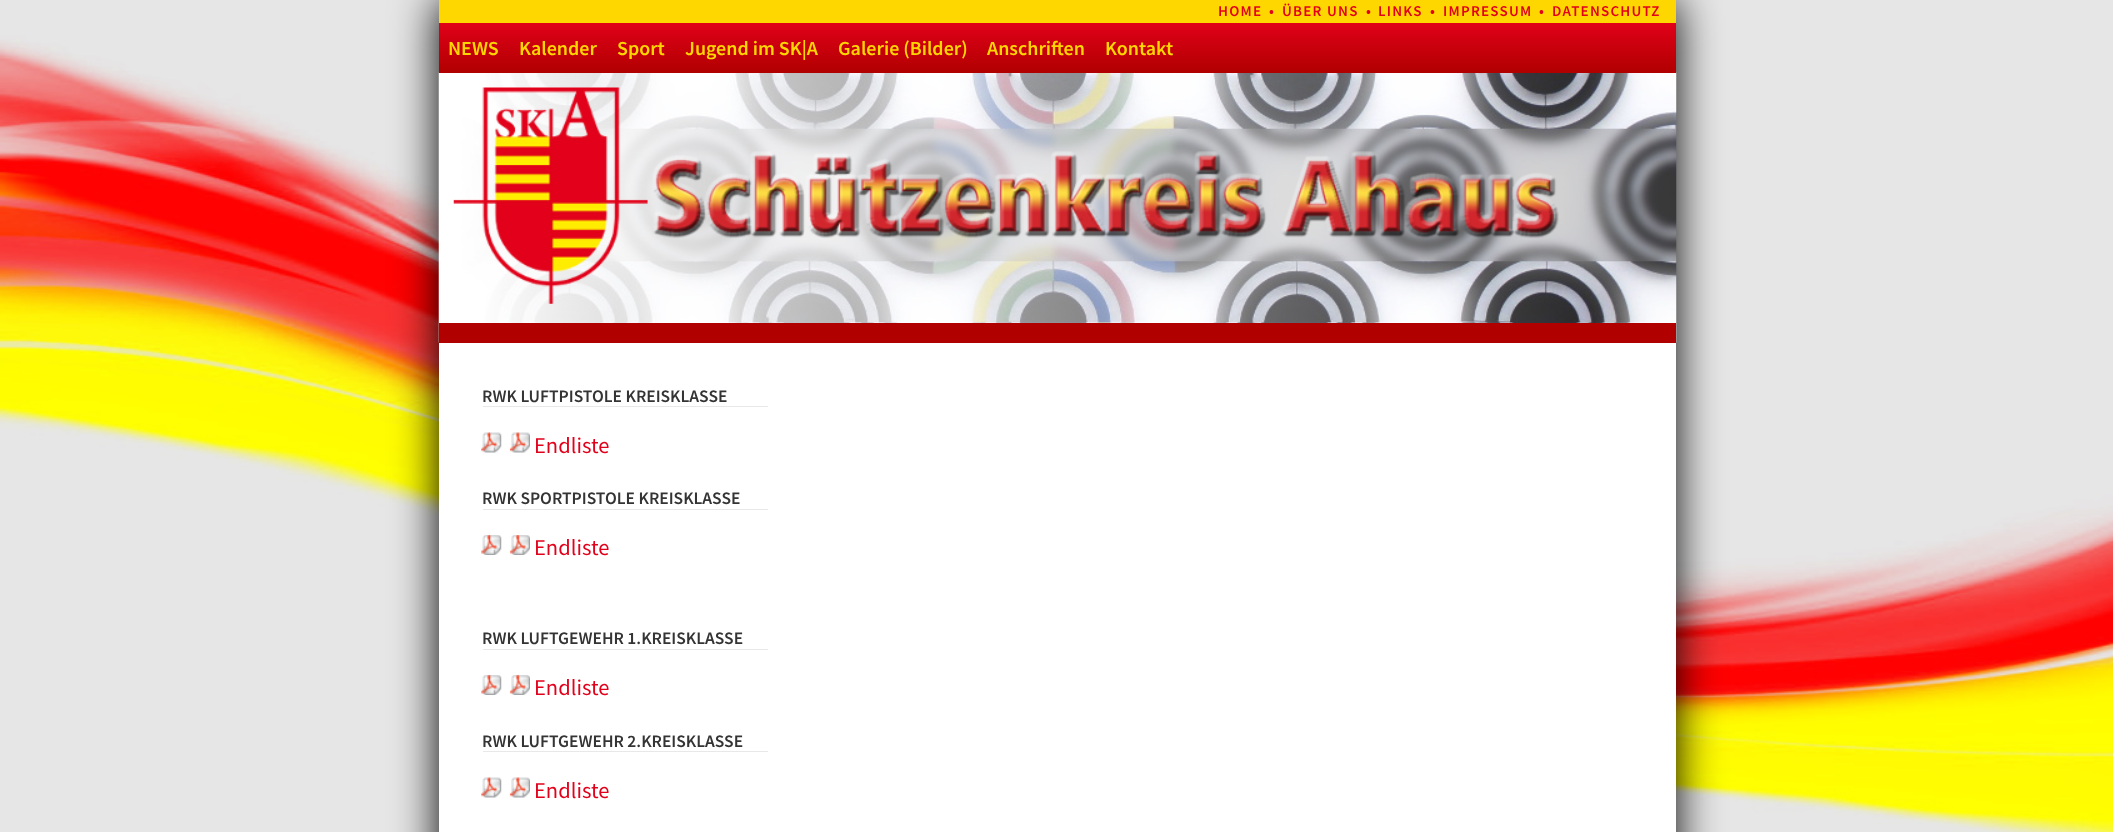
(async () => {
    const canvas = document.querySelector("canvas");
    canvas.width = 2113;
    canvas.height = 832;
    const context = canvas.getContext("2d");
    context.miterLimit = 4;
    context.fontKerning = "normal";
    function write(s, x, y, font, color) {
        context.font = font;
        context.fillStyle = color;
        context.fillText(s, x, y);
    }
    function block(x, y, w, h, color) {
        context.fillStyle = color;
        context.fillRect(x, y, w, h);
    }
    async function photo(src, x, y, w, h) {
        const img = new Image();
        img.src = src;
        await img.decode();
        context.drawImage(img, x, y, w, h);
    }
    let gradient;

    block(0, 0, 2113, 832, "rgb(255, 255, 255)");
    await photo("media/1.png", 0, 0, 2113, 832);
    context.fillStyle = "rgb(0, 0, 0)";
    context.filter = "blur(22.5px)";
    context.beginPath();
    context.rect(439, 0, 1237, 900);
    context.fill();
    context.filter = "none";
    block(439, 343, 1237, 489, "rgb(255, 255, 255)");
    block(439, 0, 1237, 23, "rgb(255, 215, 0)");
    context.letterSpacing = "1.25px";
    write("HOME", 1218, 16, "600 15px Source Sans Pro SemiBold", "rgb(226, 0, 26)");
    write("•", 1269, 16, "600 15px Source Sans Pro SemiBold", "rgb(226, 0, 26)");
    write("ÜBER UNS", 1282, 16, "600 15px Source Sans Pro SemiBold", "rgb(226, 0, 26)");
    write("•", 1366, 16, "600 15px Source Sans Pro SemiBold", "rgb(226, 0, 26)");
    write("LINKS", 1378, 16, "600 15px Source Sans Pro SemiBold", "rgb(226, 0, 26)");
    write("•", 1430, 16, "600 15px Source Sans Pro SemiBold", "rgb(226, 0, 26)");
    write("IMPRESSUM", 1443, 16, "600 15px Source Sans Pro SemiBold", "rgb(226, 0, 26)");
    write("•", 1539, 16, "600 15px Source Sans Pro SemiBold", "rgb(226, 0, 26)");
    write("DATENSCHUTZ", 1552, 16, "600 15px Source Sans Pro SemiBold", "rgb(226, 0, 26)");
    await photo("media/2.png", 438, 72, 1239, 271);
    gradient = context.createLinearGradient(1058, 22, 1058, 73);
    gradient.addColorStop(0, "rgb(226, 0, 26)");
    gradient.addColorStop(1, "rgb(176, 0, 0)");
    context.fillStyle = gradient;
    context.fillRect(439, 23, 1237, 50);
    context.letterSpacing = "0px";
    write("NEWS", 448, 55, "600 20px Source Sans Pro SemiBold", "rgb(255, 215, 0)");
    write("Kalender", 519, 55, "600 20px Source Sans Pro SemiBold", "rgb(255, 215, 0)");
    write("Sport", 617, 55, "600 20px Source Sans Pro SemiBold", "rgb(255, 215, 0)");
    write("Jugend im SK|A", 685, 55, "600 20px Source Sans Pro SemiBold", "rgb(255, 215, 0)");
    write("Galerie (Bilder)", 838, 55, "600 20px Source Sans Pro SemiBold", "rgb(255, 215, 0)");
    write("Anschriften", 987, 55, "600 20px Source Sans Pro SemiBold", "rgb(255, 215, 0)");
    write("Kontakt", 1105, 55, "600 20px Source Sans Pro SemiBold", "rgb(255, 215, 0)");
    block(439, 323, 1237, 20, "rgb(176, 0, 0)");
    await photo("media/3.png", 453, 87, 1106, 217);
    block(483, 406, 285, 1, "rgb(232, 232, 232)");
    write("RWK LUFTPISTOLE KREISKLASSE", 482, 402, "600 17.5px Source Sans Pro SemiBold", "rgb(52, 52, 52)");
    await photo("media/4.png", 481, 432, 21, 21);
    await photo("media/5.png", 510, 432, 20, 21);
    write("Endliste", 534, 453, "22.5px Source Sans Pro", "rgb(226, 0, 26)");
    block(483, 509, 285, 1, "rgb(232, 232, 232)");
    write("RWK SPORTPISTOLE KREISKLASSE", 482, 504, "600 17.5px Source Sans Pro SemiBold", "rgb(52, 52, 52)");
    await photo("media/6.png", 481, 535, 21, 20);
    await photo("media/7.png", 510, 535, 20, 20);
    write("Endliste", 534, 555, "22.5px Source Sans Pro", "rgb(226, 0, 26)");
    block(483, 649, 285, 1, "rgb(232, 232, 232)");
    write("RWK LUFTGEWEHR 1.KREISKLASSE", 482, 644, "600 17.5px Source Sans Pro SemiBold", "rgb(52, 52, 52)");
    await photo("media/6.png", 481, 675, 21, 20);
    await photo("media/7.png", 510, 675, 20, 20);
    write("Endliste", 534, 695, "22.5px Source Sans Pro", "rgb(226, 0, 26)");
    block(483, 751, 285, 1, "rgb(232, 232, 232)");
    write("RWK LUFTGEWEHR 2.KREISKLASSE", 482, 747, "600 17.5px Source Sans Pro SemiBold", "rgb(52, 52, 52)");
    await photo("media/8.png", 481, 777, 21, 21);
    await photo("media/9.png", 510, 777, 20, 21);
    write("Endliste", 534, 798, "22.5px Source Sans Pro", "rgb(226, 0, 26)");
})();
